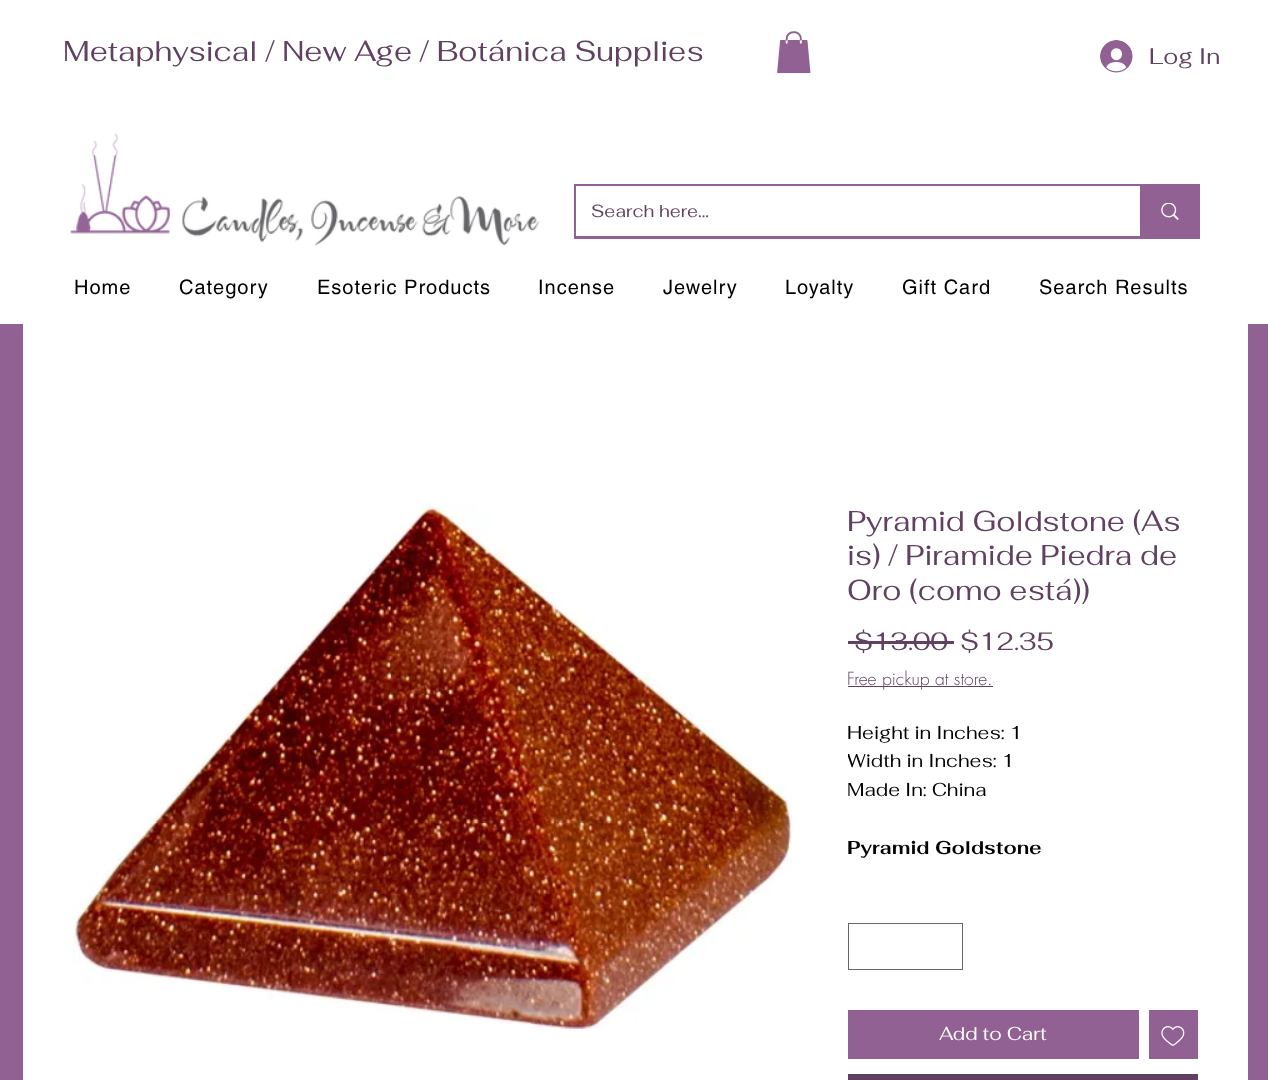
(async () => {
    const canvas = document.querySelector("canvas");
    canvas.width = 1268;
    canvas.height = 1080;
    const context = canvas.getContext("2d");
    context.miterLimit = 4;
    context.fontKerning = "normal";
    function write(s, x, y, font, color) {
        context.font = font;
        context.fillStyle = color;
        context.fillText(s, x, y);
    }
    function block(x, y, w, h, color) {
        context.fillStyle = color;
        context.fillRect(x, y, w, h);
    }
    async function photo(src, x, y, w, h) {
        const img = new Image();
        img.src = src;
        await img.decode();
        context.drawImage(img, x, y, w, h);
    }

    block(0, 0, 1268, 1080, "rgb(145, 97, 147)");
    block(0, 0, 1268, 324, "rgb(255, 255, 255)");
    write("Metaphysical / New Age / Botánica Supplies", 63, 61, "28.75px Fahkwang", "rgb(97, 65, 98)");
    await photo("media/1.png", 777, 31, 34, 43);
    await photo("media/2.png", 1100, 40, 33, 33);
    write("Log In", 1149, 64, "22.5px Fahkwang", "rgb(97, 65, 98)");
    await photo("media/3.png", 70, 133, 100, 101);
    await photo("media/4.png", 181, 196, 359, 50);
    context.strokeStyle = "rgb(145, 97, 147)";
    context.lineWidth = 3;
    context.strokeRect(575.5, 185.5, 623, 52);
    block(576, 186, 564, 50, "rgb(255, 255, 255)");
    write("Search here...", 591, 217, "17.5px Fahkwang", "rgb(97, 65, 98)");
    block(1140, 187, 57, 49, "rgb(145, 97, 147)");
    await photo("media/5.png", 1161, 203, 18, 17);
    context.letterSpacing = "1px";
    write("Home", 74, 294, "20px helvetica", "rgb(0, 0, 0)");
    write("Category", 179, 294, "20px helvetica", "rgb(0, 0, 0)");
    write("Esoteric Products", 317, 294, "20px helvetica", "rgb(0, 0, 0)");
    write("Incense", 538, 294, "20px helvetica", "rgb(0, 0, 0)");
    write("Jewelry", 663, 294, "20px helvetica", "rgb(0, 0, 0)");
    write("Loyalty", 785, 294, "20px helvetica", "rgb(0, 0, 0)");
    write("Gift Card", 902, 294, "20px helvetica", "rgb(0, 0, 0)");
    write("Search Results", 1039, 294, "20px helvetica", "rgb(0, 0, 0)");
    block(23, 324, 1225, 756, "rgb(255, 255, 255)");
    await photo("media/6.png", 73, 504, 720, 525);
    context.letterSpacing = "0px";
    write("Pyramid Goldstone (As", 847, 531, "28.75px Fahkwang", "rgb(97, 65, 98)");
    write("is) / Piramide Piedra de", 847, 565, "28.75px Fahkwang", "rgb(97, 65, 98)");
    write("Oro (como está))", 847, 600, "28.75px Fahkwang", "rgb(97, 65, 98)");
    write("$13.00", 854, 650, "25px Fahkwang", "rgb(97, 65, 98)");
    block(848, 641, 106, 3, "rgb(97, 65, 98)");
    write("$12.35", 960, 650, "25px Fahkwang", "rgb(97, 65, 98)");
    block(848, 686, 145, 1, "rgb(97, 65, 98)");
    write("Free pickup at store.", 847, 685, "300 17.5px futura", "rgb(97, 65, 98)");
    write("Height in Inches: 1", 847, 739, "18.75px Fahkwang", "rgb(0, 0, 0)");
    context.save();
    context.beginPath();
    context.rect(848, 718, 350, 143);
    context.clip();
    write("Width in Inches: 1", 847, 767, "18.75px Fahkwang", "rgb(0, 0, 0)");
    context.restore();
    write("Made In: China", 847, 796, "18.75px Fahkwang", "rgb(0, 0, 0)");
    write("Pyramid Goldstone", 847, 854, "bold 18.75px Fahkwang", "rgb(0, 0, 0)");
    context.strokeStyle = "rgb(102, 102, 102)";
    context.lineWidth = 1;
    context.strokeRect(848.5, 923.5, 114, 46);
    block(848, 1010, 291, 49, "rgb(145, 97, 147)");
    write("Add to Cart", 939, 1040, "18.75px Fahkwang", "rgb(255, 255, 255)");
    block(1149, 1010, 49, 49, "rgb(145, 97, 147)");
    await photo("media/7.png", 1161, 1026, 24, 20);
    block(848, 1074, 350, 6, "rgb(97, 65, 98)");
})();
